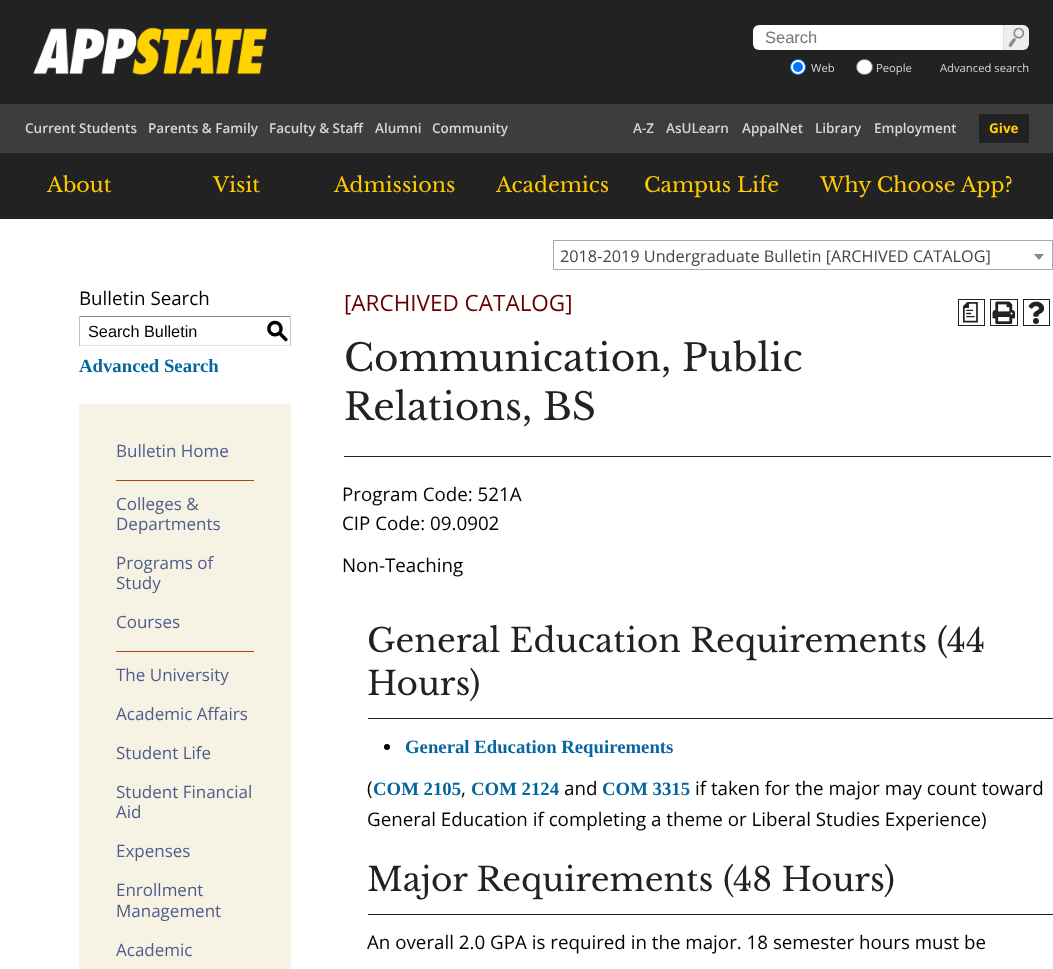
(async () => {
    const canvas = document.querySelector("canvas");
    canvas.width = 1053;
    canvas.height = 969;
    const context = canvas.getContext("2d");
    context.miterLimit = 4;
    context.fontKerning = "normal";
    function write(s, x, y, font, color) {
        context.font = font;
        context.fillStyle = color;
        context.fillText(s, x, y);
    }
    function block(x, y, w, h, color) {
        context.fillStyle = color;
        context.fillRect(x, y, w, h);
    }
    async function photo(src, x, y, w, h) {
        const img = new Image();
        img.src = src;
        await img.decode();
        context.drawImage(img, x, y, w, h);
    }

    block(0, 0, 1053, 969, "rgb(255, 255, 255)");
    block(0, 0, 1053, 104, "rgb(34, 34, 34)");
    await photo("media/1.png", 33, 27, 235, 48);
    context.fillStyle = "rgb(255, 255, 255)";
    context.beginPath();
    context.roundRect(753, 25, 250, 25, [6, 0, 0, 6]);
    context.fill();
    write("Search", 765, 43, "16.5px Liberation Sans", "rgb(117, 117, 117)");
    context.fillStyle = "rgb(238, 238, 238)";
    context.beginPath();
    context.roundRect(1003, 25, 26, 25, [0, 6, 6, 0]);
    context.fill();
    block(1003, 25, 1, 25, "rgb(221, 221, 221)");
    await photo("media/2.png", 1008, 27, 17, 21);
    context.fillStyle = "rgb(255, 255, 255)";
    context.beginPath();
    context.arc(798, 67, 7.5, 0, Math.PI * 2);
    context.fill();
    context.strokeStyle = "rgb(0, 117, 255)";
    context.stroke();
    context.fillStyle = "rgb(0, 117, 255)";
    context.beginPath();
    context.arc(798, 67, 5, 0, Math.PI * 2);
    context.fill();
    write("Web", 811, 72, "11.25px Open Sans", "rgb(214, 214, 214)");
    context.fillStyle = "rgb(255, 255, 255)";
    context.beginPath();
    context.roundRect(856.5, 59.5, 16, 15, 7.5);
    context.fill();
    context.strokeStyle = "rgb(118, 118, 118)";
    context.stroke();
    write("People", 876, 72, "11.25px Open Sans", "rgb(214, 214, 214)");
    write("Advanced search", 940, 72, "11.25px Open Sans", "rgb(214, 214, 214)");
    block(0, 104, 1053, 49, "rgb(61, 61, 61)");
    write("Current Students", 25, 133, "600 13.5px Open Sans", "rgb(214, 214, 214)");
    write("Parents & Family", 148, 133, "600 13.5px Open Sans", "rgb(214, 214, 214)");
    write("Faculty & Staff", 269, 133, "600 13.5px Open Sans", "rgb(214, 214, 214)");
    write("Alumni", 375, 133, "600 13.5px Open Sans", "rgb(214, 214, 214)");
    write("Community", 432, 133, "600 13.5px Open Sans", "rgb(214, 214, 214)");
    write("A-Z", 633, 133, "600 13.5px Open Sans", "rgb(214, 214, 214)");
    write("AsULearn", 666, 133, "600 13.5px Open Sans", "rgb(214, 214, 214)");
    write("AppalNet", 742, 133, "600 13.5px Open Sans", "rgb(214, 214, 214)");
    write("Library", 815, 133, "600 13.5px Open Sans", "rgb(214, 214, 214)");
    context.save();
    context.beginPath();
    context.rect(874, 104, 82, 49);
    context.clip();
    write("Employment", 874, 133, "600 13.5px Open Sans", "rgb(214, 214, 214)");
    context.restore();
    block(979, 114, 50, 29, "rgb(34, 34, 34)");
    write("Give", 989, 133, "bold 13.5px Open Sans", "rgb(255, 210, 4)");
    block(0, 153, 1053, 66, "rgb(34, 34, 34)");
    write("About", 47, 192, "20.6px Libre Baskerville", "rgb(255, 204, 0)");
    write("Visit", 213, 192, "20.6px Libre Baskerville", "rgb(255, 204, 0)");
    write("Admissions", 334, 192, "20.6px Libre Baskerville", "rgb(255, 204, 0)");
    write("Academics", 496, 192, "20.6px Libre Baskerville", "rgb(255, 204, 0)");
    write("Campus Life", 644, 192, "20.6px Libre Baskerville", "rgb(255, 204, 0)");
    write("Why Choose App?", 820, 192, "20.6px Libre Baskerville", "rgb(255, 204, 0)");
    context.strokeStyle = "rgb(170, 170, 170)";
    context.strokeRect(553.5, 240.5, 499, 29);
    write("2018-2019 Undergraduate Bulletin [ARCHIVED CATALOG]", 560, 262, "16.25px Open Sans", "rgb(68, 68, 68)");
    context.fillStyle = "rgb(136, 136, 136)";
    context.beginPath();
    context.moveTo(1034, 254);
    context.lineTo(1044, 254);
    context.lineTo(1039, 260);
    context.closePath();
    context.fill();
    write("Bulletin Search", 79, 305, "18.75px Open Sans", "rgb(0, 0, 0)");
    block(79, 316, 212, 1, "rgb(132, 132, 132)");
    block(290, 316, 1, 30, "rgb(193, 193, 193)");
    block(79, 345, 212, 1, "rgb(225, 225, 225)");
    block(79, 316, 1, 30, "rgb(193, 193, 193)");
    write("Search Bulletin", 88, 337, "16.25px Liberation Sans", "rgb(0, 0, 0)");
    write("S", 266, 338, "500 22.5px 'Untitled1'", "rgb(0, 0, 0)");
    write("Advanced Search", 79, 372, "bold 18.75px Liberation Serif", "rgb(4, 102, 157)");
    block(79, 404, 212, 565, "rgb(246, 243, 229)");
    write("Bulletin Home", 116, 457, "17px Open Sans", "rgb(79, 92, 140)");
    block(116, 480, 138, 1, "rgb(176, 70, 16)");
    write("Colleges &", 116, 510, "17px Open Sans", "rgb(79, 92, 140)");
    write("Departments", 116, 530, "17px Open Sans", "rgb(79, 92, 140)");
    write("Programs of", 116, 569, "17px Open Sans", "rgb(79, 92, 140)");
    write("Study", 116, 589, "17px Open Sans", "rgb(79, 92, 140)");
    write("Courses", 116, 628, "17px Open Sans", "rgb(79, 92, 140)");
    block(116, 651, 138, 1, "rgb(176, 70, 16)");
    write("The University", 116, 681, "17px Open Sans", "rgb(79, 92, 140)");
    write("Academic Affairs", 116, 720, "17px Open Sans", "rgb(79, 92, 140)");
    write("Student Life", 116, 759, "17px Open Sans", "rgb(79, 92, 140)");
    write("Student Financial", 116, 798, "17px Open Sans", "rgb(79, 92, 140)");
    write("Aid", 116, 818, "17px Open Sans", "rgb(79, 92, 140)");
    write("Expenses", 116, 857, "17px Open Sans", "rgb(79, 92, 140)");
    write("Enrollment", 116, 896, "17px Open Sans", "rgb(79, 92, 140)");
    write("Management", 116, 917, "17px Open Sans", "rgb(79, 92, 140)");
    write("Academic", 116, 956, "17px Open Sans", "rgb(79, 92, 140)");
    write("[ARCHIVED CATALOG]", 344, 311, "22.5px Open Sans", "rgb(102, 0, 0)");
    context.strokeStyle = "rgb(34, 34, 34)";
    context.strokeRect(958.5, 299.5, 26, 26);
    write("a", 959, 319, "500 22.5px 'Untitled1'", "rgb(34, 34, 34)");
    context.strokeRect(990.5, 299.5, 27, 26);
    await photo("media/3.png", 992, 301, 23, 24);
    context.strokeRect(1023.5, 299.5, 26, 26);
    await photo("media/4.png", 1028, 301, 17, 23);
    write("Communication, Public", 344, 371, "37.5px Libre Baskerville", "rgb(34, 34, 34)");
    write("Relations, BS", 344, 420, "37.5px Libre Baskerville", "rgb(34, 34, 34)");
    block(344, 456, 707, 1, "rgb(34, 34, 34)");
    write("Program Code: 521A", 342, 501, "18.75px Open Sans", "rgb(0, 0, 0)");
    write("CIP Code: 09.0902", 342, 530, "18.75px Open Sans", "rgb(0, 0, 0)");
    write("Non-Teaching", 342, 572, "18.75px Open Sans", "rgb(0, 0, 0)");
    write("General Education Requirements (44", 367, 652, "32.8px Libre Baskerville", "rgb(34, 34, 34)");
    write("Hours)", 367, 695, "32.8px Libre Baskerville", "rgb(34, 34, 34)");
    block(368, 718, 685, 1, "rgb(34, 34, 34)");
    context.fillStyle = "rgb(0, 0, 0)";
    context.beginPath();
    context.arc(387, 747, 3, 0, Math.PI * 2);
    context.fill();
    write("General Education Requirements", 405, 753, "bold 18.75px Liberation Serif", "rgb(4, 102, 157)");
    write("(", 367, 795, "18.75px Open Sans", "rgb(0, 0, 0)");
    write("COM 2105", 373, 795, "bold 18.75px Liberation Serif", "rgb(4, 102, 157)");
    write(",", 461, 795, "18.75px Open Sans", "rgb(0, 0, 0)");
    write("COM 2124", 471, 795, "bold 18.75px Liberation Serif", "rgb(4, 102, 157)");
    write("and", 564, 795, "18.75px Open Sans", "rgb(0, 0, 0)");
    write("COM 3315", 602, 795, "bold 18.75px Liberation Serif", "rgb(4, 102, 157)");
    write("if taken for the major may count toward", 695, 795, "18.75px Open Sans", "rgb(0, 0, 0)");
    write("General Education if completing a theme or Liberal Studies Experience)", 367, 826, "18.75px Open Sans", "rgb(0, 0, 0)");
    write("Major Requirements (48 Hours)", 367, 891, "32.8px Libre Baskerville", "rgb(34, 34, 34)");
    block(368, 914, 685, 1, "rgb(34, 34, 34)");
    write("An overall 2.0 GPA is required in the major. 18 semester hours must be", 367, 949, "18.75px Open Sans", "rgb(0, 0, 0)");
})();
